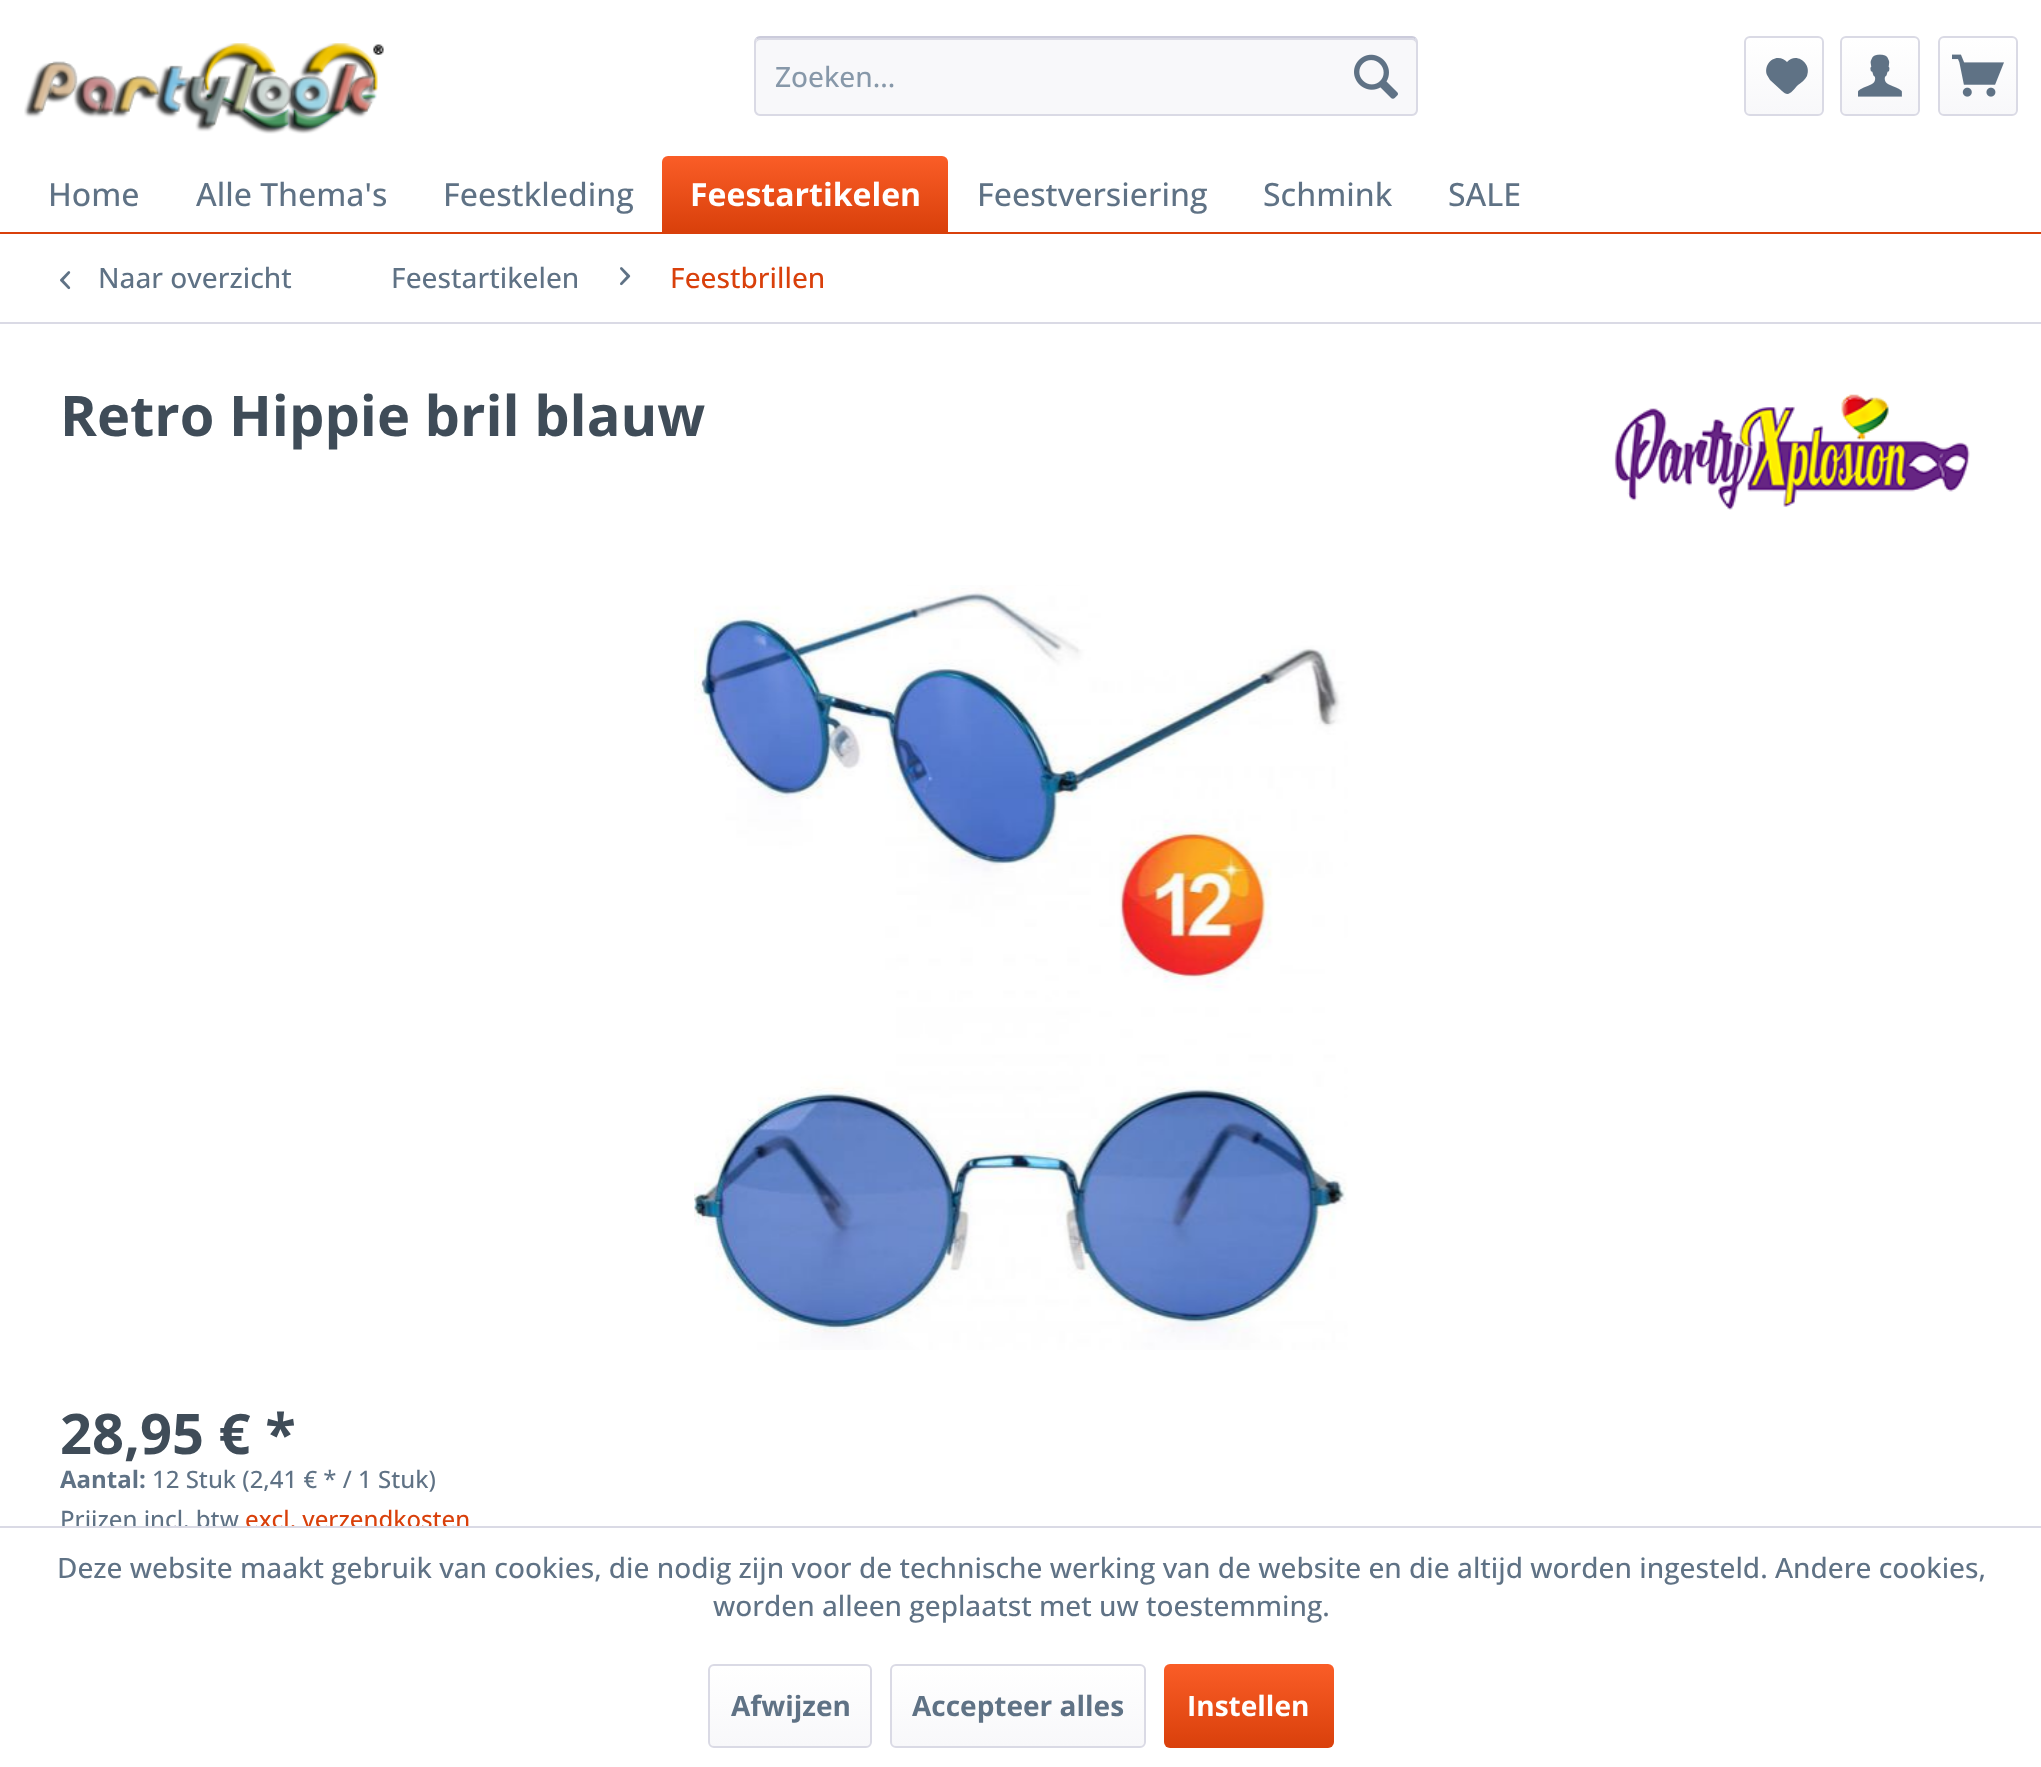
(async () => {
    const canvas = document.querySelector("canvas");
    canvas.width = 2041;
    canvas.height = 1767;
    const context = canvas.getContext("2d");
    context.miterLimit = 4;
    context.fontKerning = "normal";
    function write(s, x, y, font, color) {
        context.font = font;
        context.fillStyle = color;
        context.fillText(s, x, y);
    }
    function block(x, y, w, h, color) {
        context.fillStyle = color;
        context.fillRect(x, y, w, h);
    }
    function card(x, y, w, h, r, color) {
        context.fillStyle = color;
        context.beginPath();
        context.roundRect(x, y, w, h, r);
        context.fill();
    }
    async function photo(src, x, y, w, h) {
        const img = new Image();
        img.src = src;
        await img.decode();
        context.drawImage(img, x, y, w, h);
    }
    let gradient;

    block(0, 0, 2041, 1767, "rgb(255, 255, 255)");
    await photo("media/1.png", 24, 43, 360, 91);
    card(754, 36, 664, 80, 6, "rgb(248, 248, 250)");
    context.fillStyle = "rgb(218, 218, 229)";
    context.beginPath();
    context.moveTo(760, 40);
    context.lineTo(1412, 40);
    context.bezierCurveTo(1414, 40, 1416, 42, 1416, 44);
    context.bezierCurveTo(1416, 41, 1416, 38, 1412, 38);
    context.lineTo(758, 38);
    context.lineTo(757, 40);
    context.bezierCurveTo(756, 41, 756, 43, 756, 44);
    context.bezierCurveTo(756, 42, 758, 40, 760, 40);
    context.closePath();
    context.fill();
    context.beginPath();
    context.moveTo(756.5, 38.5);
    context.bezierCurveTo(757.5, 37.5, 758.5, 37, 760, 37);
    context.lineTo(1412, 37);
    context.bezierCurveTo(1413.5, 37, 1414.5, 37.5, 1415.5, 38.5);
    context.strokeStyle = "rgb(203, 203, 219)";
    context.lineWidth = 2;
    context.stroke();
    context.beginPath();
    context.moveTo(1415.5, 38.5);
    context.bezierCurveTo(1416.5, 39.5, 1417, 40.5, 1417, 42);
    context.lineTo(1417, 110);
    context.bezierCurveTo(1417, 111.5, 1416.5, 112.5, 1415.5, 113.5);
    context.bezierCurveTo(1414.5, 114.5, 1413.5, 115, 1412, 115);
    context.lineTo(760, 115);
    context.bezierCurveTo(758.5, 115, 757.5, 114.5, 756.5, 113.5);
    context.bezierCurveTo(755.5, 112.5, 755, 111.5, 755, 110);
    context.lineTo(755, 42);
    context.bezierCurveTo(755, 40.5, 755.5, 39.5, 756.5, 38.5);
    context.strokeStyle = "rgb(218, 218, 229)";
    context.stroke();
    write("Zoeken...", 775, 87, "500 28px Open Sans", "rgb(135, 152, 169)");
    await photo("media/2.png", 1354, 54, 44, 45);
    gradient = context.createLinearGradient(1784, 38, 1784, 114);
    gradient.addColorStop(0, "rgb(255, 255, 255)");
    gradient.addColorStop(1, "rgb(248, 248, 250)");
    context.fillStyle = gradient;
    context.beginPath();
    context.roundRect(1746, 38, 76, 76, 4);
    context.fill();
    context.beginPath();
    context.roundRect(1745, 37, 78, 78, 5);
    context.stroke();
    context.fillStyle = "rgb(95, 114, 133)";
    context.beginPath();
    context.moveTo(1778, 58);
    context.bezierCurveTo(1770, 58, 1764, 67, 1767, 75);
    context.lineTo(1770, 80);
    context.lineTo(1782, 91);
    context.bezierCurveTo(1789, 98, 1792, 91, 1798, 85);
    context.bezierCurveTo(1801, 83, 1805, 80, 1807, 76);
    context.bezierCurveTo(1812, 63, 1796, 52, 1787, 62);
    context.bezierCurveTo(1785, 60, 1782, 58, 1778, 58);
    context.closePath();
    context.fill();
    gradient = context.createLinearGradient(1880, 38, 1880, 114);
    gradient.addColorStop(0, "rgb(255, 255, 255)");
    gradient.addColorStop(1, "rgb(248, 248, 250)");
    context.fillStyle = gradient;
    context.beginPath();
    context.roundRect(1842, 38, 76, 76, 4);
    context.fill();
    context.beginPath();
    context.roundRect(1841, 37, 78, 78, 5);
    context.stroke();
    await photo("media/3.png", 1858, 54, 44, 43);
    gradient = context.createLinearGradient(1978, 38, 1978, 114);
    gradient.addColorStop(0, "rgb(255, 255, 255)");
    gradient.addColorStop(1, "rgb(248, 248, 250)");
    context.fillStyle = gradient;
    context.beginPath();
    context.roundRect(1940, 38, 76, 76, 4);
    context.fill();
    context.beginPath();
    context.roundRect(1939, 37, 78, 78, 5);
    context.stroke();
    await photo("media/4.png", 1952, 54, 52, 43);
    block(0, 232, 2041, 2, "rgb(217, 64, 11)");
    write("Home", 48, 206, "500 32px Open Sans", "rgb(95, 114, 133)");
    write("Alle Thema's", 196, 206, "500 32px Open Sans", "rgb(95, 114, 133)");
    write("Feestkleding", 443, 206, "500 32px Open Sans", "rgb(95, 114, 133)");
    gradient = context.createLinearGradient(805, 156, 805, 232);
    gradient.addColorStop(0, "rgb(250, 93, 39)");
    gradient.addColorStop(1, "rgb(217, 64, 11)");
    context.fillStyle = gradient;
    context.beginPath();
    context.roundRect(662, 156, 286, 76, [6, 6, 0, 0]);
    context.fill();
    write("Feestartikelen", 690, 206, "bold 32px Open Sans", "rgb(255, 255, 255)");
    write("Feestversiering", 977, 206, "500 32px Open Sans", "rgb(95, 114, 133)");
    write("Schmink", 1263, 206, "500 32px Open Sans", "rgb(95, 114, 133)");
    write("SALE", 1448, 206, "500 32px Open Sans", "rgb(95, 114, 133)");
    block(0, 322, 2041, 2, "rgb(218, 218, 229)");
    await photo("media/5.png", 60, 271, 11, 19);
    write("Naar overzicht", 98, 288, "500 28px Open Sans", "rgb(95, 114, 133)");
    write("Feestartikelen", 391, 288, "500 28px Open Sans", "rgb(95, 114, 133)");
    await photo("media/6.png", 620, 267, 11, 19);
    write("Feestbrillen", 670, 288, "500 28px Open Sans", "rgb(217, 64, 11)");
    write("Retro Hippie bril blauw", 60, 436, "bold 56px Open Sans", "rgb(63, 76, 88)");
    await photo("media/7.png", 1614, 394, 356, 116);
    await photo("media/8.png", 694, 585, 654, 765);
    write("28,95 € *", 60, 1454, "bold 56px Open Sans", "rgb(63, 76, 88)");
    write("Aantal:", 60, 1488, "bold 24px Open Sans", "rgb(95, 114, 133)");
    write("12 Stuk (2,41 € * / 1 Stuk)", 152, 1488, "500 24px Open Sans", "rgb(95, 114, 133)");
    write("Prijzen incl. btw", 60, 1528, "500 24px Open Sans", "rgb(95, 114, 133)");
    write("excl. verzendkosten", 245, 1528, "500 24px Open Sans", "rgb(217, 64, 11)");
    block(89, 1528, 363, 6, "rgb(255, 255, 255)");
    block(0, 1526, 2041, 2, "rgb(218, 218, 229)");
    write("Deze website maakt gebruik van cookies, die nodig zijn voor de technische werking van de website en die altijd worden ingesteld. Andere cookies,", 57, 1578, "500 28px Open Sans", "rgb(95, 114, 133)");
    write("worden alleen geplaatst met uw toestemming.", 713, 1616, "500 28px Open Sans", "rgb(95, 114, 133)");
    gradient = context.createLinearGradient(790, 1666, 790, 1746);
    gradient.addColorStop(0, "rgb(255, 255, 255)");
    gradient.addColorStop(1, "rgb(248, 248, 250)");
    context.fillStyle = gradient;
    context.beginPath();
    context.roundRect(710, 1666, 160, 80, 4);
    context.fill();
    context.beginPath();
    context.roundRect(709, 1665, 162, 82, 5);
    context.stroke();
    write("Afwijzen", 731, 1716, "bold 28px Open Sans", "rgb(95, 114, 133)");
    gradient = context.createLinearGradient(1018, 1666, 1018, 1746);
    gradient.addColorStop(0, "rgb(255, 255, 255)");
    gradient.addColorStop(1, "rgb(248, 248, 250)");
    context.fillStyle = gradient;
    context.beginPath();
    context.roundRect(892, 1666, 252, 80, 4);
    context.fill();
    context.beginPath();
    context.roundRect(891, 1665, 254, 82, 5);
    context.stroke();
    write("Accepteer alles", 912, 1716, "bold 28px Open Sans", "rgb(95, 114, 133)");
    gradient = context.createLinearGradient(1249, 1664, 1249, 1748);
    gradient.addColorStop(0, "rgb(250, 93, 39)");
    gradient.addColorStop(1, "rgb(217, 64, 11)");
    context.fillStyle = gradient;
    context.beginPath();
    context.roundRect(1164, 1664, 170, 84, 6);
    context.fill();
    write("Instellen", 1187, 1716, "bold 28px Open Sans", "rgb(255, 255, 255)");
})();
